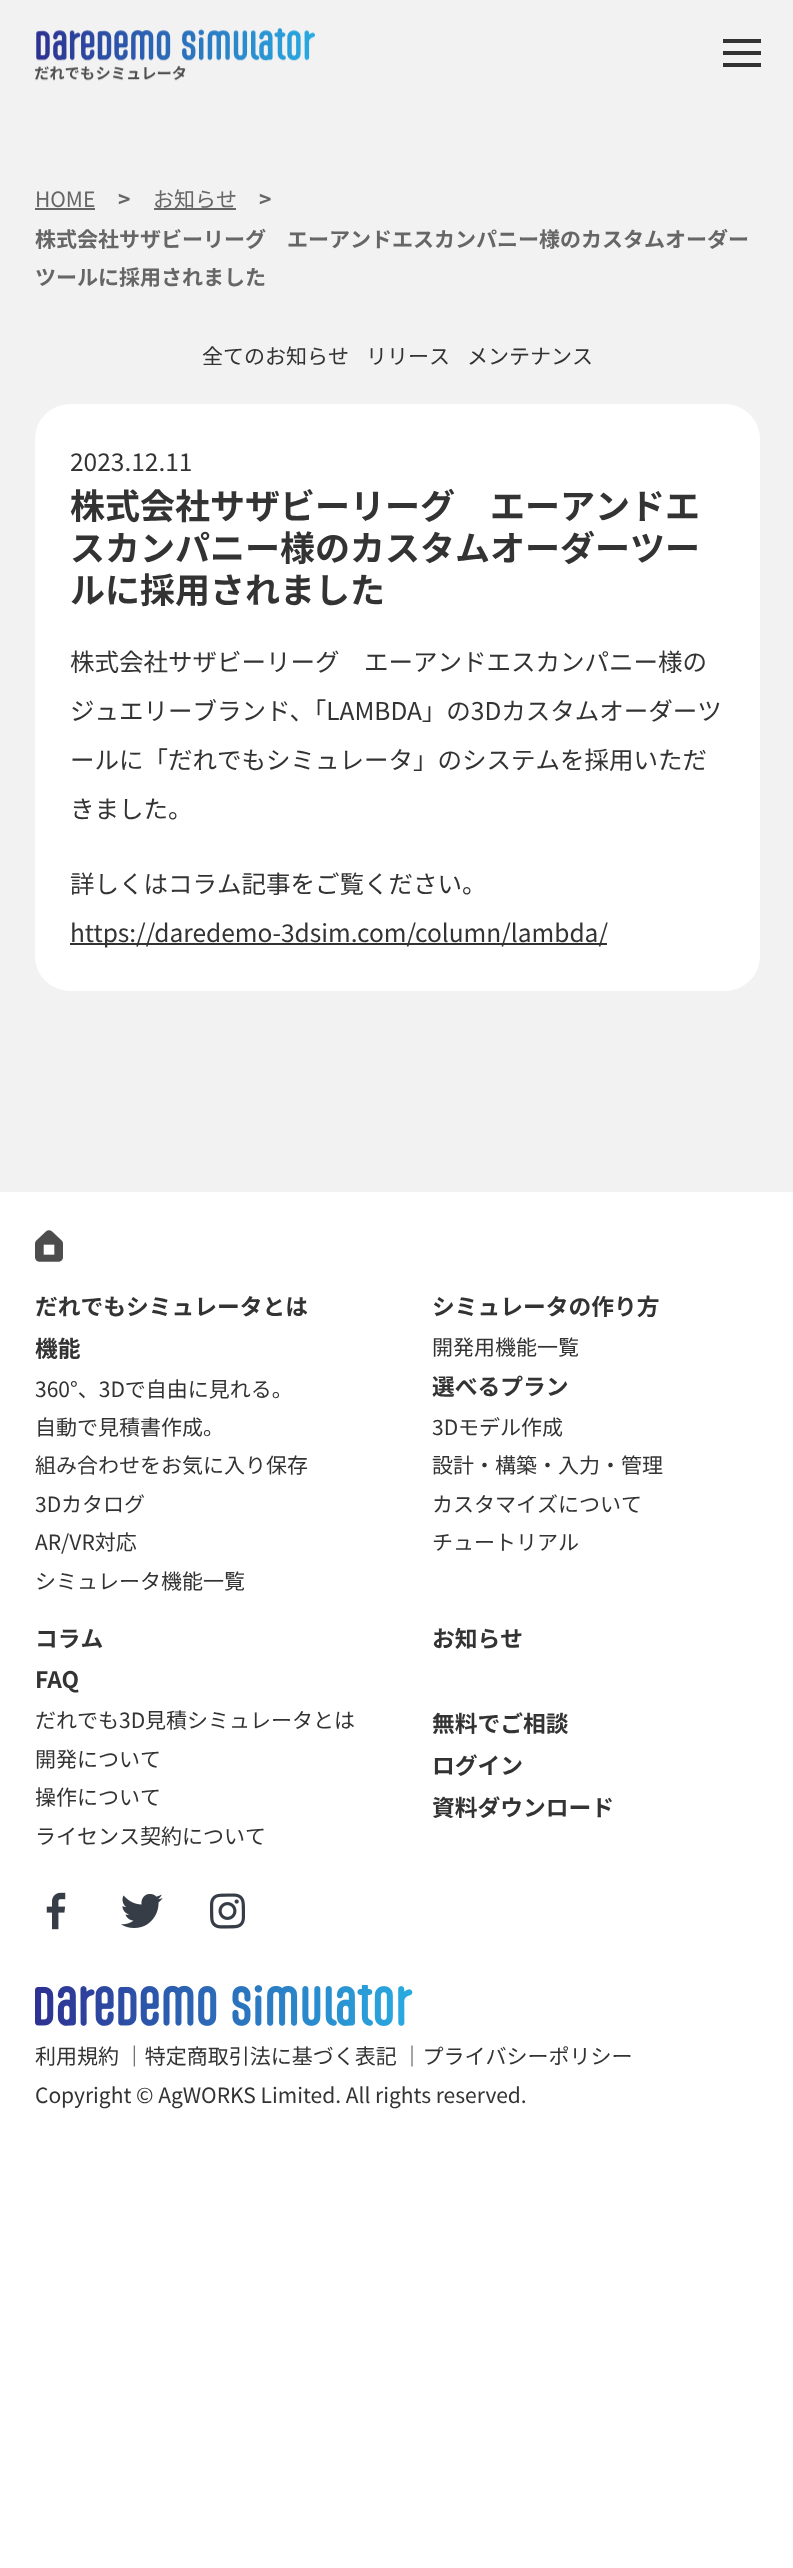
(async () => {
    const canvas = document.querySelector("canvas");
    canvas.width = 793;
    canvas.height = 2568;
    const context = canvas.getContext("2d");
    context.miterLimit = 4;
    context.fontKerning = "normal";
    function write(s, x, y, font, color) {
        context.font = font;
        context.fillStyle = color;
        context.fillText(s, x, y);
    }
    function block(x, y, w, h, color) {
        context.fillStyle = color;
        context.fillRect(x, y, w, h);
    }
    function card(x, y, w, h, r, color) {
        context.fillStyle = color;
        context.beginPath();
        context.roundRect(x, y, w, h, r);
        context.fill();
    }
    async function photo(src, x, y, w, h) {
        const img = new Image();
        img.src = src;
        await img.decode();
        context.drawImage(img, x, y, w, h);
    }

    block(0, 0, 793, 2568, "rgb(255, 255, 255)");
    block(0, 0, 793, 1192, "rgb(242, 242, 242)");
    await photo("media/1.png", 35, 28, 280, 53);
    block(723, 39, 38, 4, "rgb(51, 51, 51)");
    block(723, 51, 38, 4, "rgb(51, 51, 51)");
    block(723, 63, 38, 4, "rgb(51, 51, 51)");
    write("HOME", 35, 207, "21px Noto Sans JP", "rgb(102, 102, 102)");
    block(35, 208, 60, 2, "rgb(102, 102, 102)");
    write(">", 118, 207, "bold 21px Noto Sans JP", "rgb(102, 102, 102)");
    block(154, 208, 82, 2, "rgb(102, 102, 102)");
    write("お知らせ", 153, 207, "21px Noto Sans JP", "rgb(102, 102, 102)");
    write(">", 259, 207, "bold 21px Noto Sans JP", "rgb(102, 102, 102)");
    write("株式会社サザビーリーグ　エーアンドエスカンパニー様のカスタムオーダー", 35, 247, "bold 21px Noto Sans JP", "rgb(102, 102, 102)");
    write("ツールに採用されました", 35, 285, "bold 21px Noto Sans JP", "rgb(102, 102, 102)");
    write("全てのお知らせ", 202, 364, "21px Noto Sans JP", "rgb(51, 51, 51)");
    write("リリース", 366, 364, "21px Noto Sans JP", "rgb(51, 51, 51)");
    write("メンテナンス", 467, 364, "21px Noto Sans JP", "rgb(51, 51, 51)");
    card(35, 404, 725, 587, 35, "rgb(255, 255, 255)");
    write("2023.12.11", 70, 471, "24.5px Noto Sans JP", "rgb(51, 51, 51)");
    write("株式会社サザビーリーグ　エーアンドエ", 70, 519, "bold 35px Noto Sans JP", "rgb(51, 51, 51)");
    write("スカンパニー様のカスタムオーダーツー", 70, 561, "bold 35px Noto Sans JP", "rgb(51, 51, 51)");
    write("ルに採用されました", 70, 603, "bold 35px Noto Sans JP", "rgb(51, 51, 51)");
    write("株式会社サザビーリーグ　エーアンドエスカンパニー様の", 70, 671, "24.5px Noto Sans JP", "rgb(51, 51, 51)");
    write("ジュエリーブランド、「LAMBDA」の3Dカスタムオーダーツ", 70, 720, "24.5px Noto Sans JP", "rgb(51, 51, 51)");
    write("ールに「だれでもシミュレータ」のシステムを採用いただ", 70, 769, "24.5px Noto Sans JP", "rgb(51, 51, 51)");
    write("きました。", 70, 818, "24.5px Noto Sans JP", "rgb(51, 51, 51)");
    write("詳しくはコラム記事をご覧ください。", 70, 893, "24.5px Noto Sans JP", "rgb(51, 51, 51)");
    block(70, 943, 537, 2, "rgb(51, 51, 51)");
    write("https://daredemo-3dsim.com/column/lambda/", 70, 942, "24.5px Noto Sans JP", "rgb(51, 51, 51)");
    await photo("media/2.png", 35, 1230, 28, 32);
    write("だれでもシミュレータとは", 35, 1315, "bold 22.75px Noto Sans JP", "rgb(51, 51, 51)");
    write("機能", 35, 1357, "bold 22.75px Noto Sans JP", "rgb(51, 51, 51)");
    write("360°、3Dで自由に見れる。", 35, 1397, "21px Noto Sans JP", "rgb(51, 51, 51)");
    write("自動で見積書作成。", 35, 1435, "21px Noto Sans JP", "rgb(51, 51, 51)");
    write("組み合わせをお気に入り保存", 35, 1473, "21px Noto Sans JP", "rgb(51, 51, 51)");
    write("3Dカタログ", 35, 1512, "21px Noto Sans JP", "rgb(51, 51, 51)");
    write("AR/VR対応", 35, 1550, "21px Noto Sans JP", "rgb(51, 51, 51)");
    write("シミュレータ機能一覧", 35, 1589, "21px Noto Sans JP", "rgb(51, 51, 51)");
    write("シミュレータの作り方", 432, 1315, "bold 22.75px Noto Sans JP", "rgb(51, 51, 51)");
    write("開発用機能一覧", 432, 1355, "21px Noto Sans JP", "rgb(51, 51, 51)");
    write("選べるプラン", 432, 1395, "bold 22.75px Noto Sans JP", "rgb(51, 51, 51)");
    write("3Dモデル作成", 432, 1435, "21px Noto Sans JP", "rgb(51, 51, 51)");
    write("設計・構築・入力・管理", 432, 1473, "21px Noto Sans JP", "rgb(51, 51, 51)");
    write("カスタマイズについて", 432, 1512, "21px Noto Sans JP", "rgb(51, 51, 51)");
    write("チュートリアル", 432, 1550, "21px Noto Sans JP", "rgb(51, 51, 51)");
    write("コラム", 35, 1647, "bold 22.75px Noto Sans JP", "rgb(51, 51, 51)");
    write("FAQ", 35, 1688, "bold 22.75px Noto Sans JP", "rgb(51, 51, 51)");
    write("だれでも3D見積シミュレータとは", 35, 1728, "21px Noto Sans JP", "rgb(51, 51, 51)");
    write("開発について", 35, 1767, "21px Noto Sans JP", "rgb(51, 51, 51)");
    write("操作について", 35, 1805, "21px Noto Sans JP", "rgb(51, 51, 51)");
    write("ライセンス契約について", 35, 1844, "21px Noto Sans JP", "rgb(51, 51, 51)");
    write("お知らせ", 432, 1647, "bold 22.75px Noto Sans JP", "rgb(51, 51, 51)");
    write("無料でご相談", 432, 1732, "bold 22.75px Noto Sans JP", "rgb(51, 51, 51)");
    write("ログイン", 432, 1774, "bold 22.75px Noto Sans JP", "rgb(51, 51, 51)");
    write("資料ダウンロード", 432, 1816, "bold 22.75px Noto Sans JP", "rgb(51, 51, 51)");
    await photo("media/3.png", 46, 1892, 20, 38);
    await photo("media/4.png", 121, 1894, 42, 34);
    await photo("media/5.png", 210, 1893, 35, 36);
    await photo("media/6.png", 35, 1985, 378, 41);
    write("利用規約 ｜特定商取引法に基づく表記 ｜プライバシーポリシー", 35, 2064, "21px Noto Sans JP", "rgb(51, 51, 51)");
    write("Copyright © AgWORKS Limited. All rights reserved.", 35, 2103, "21px Noto Sans JP", "rgb(51, 51, 51)");
})();
